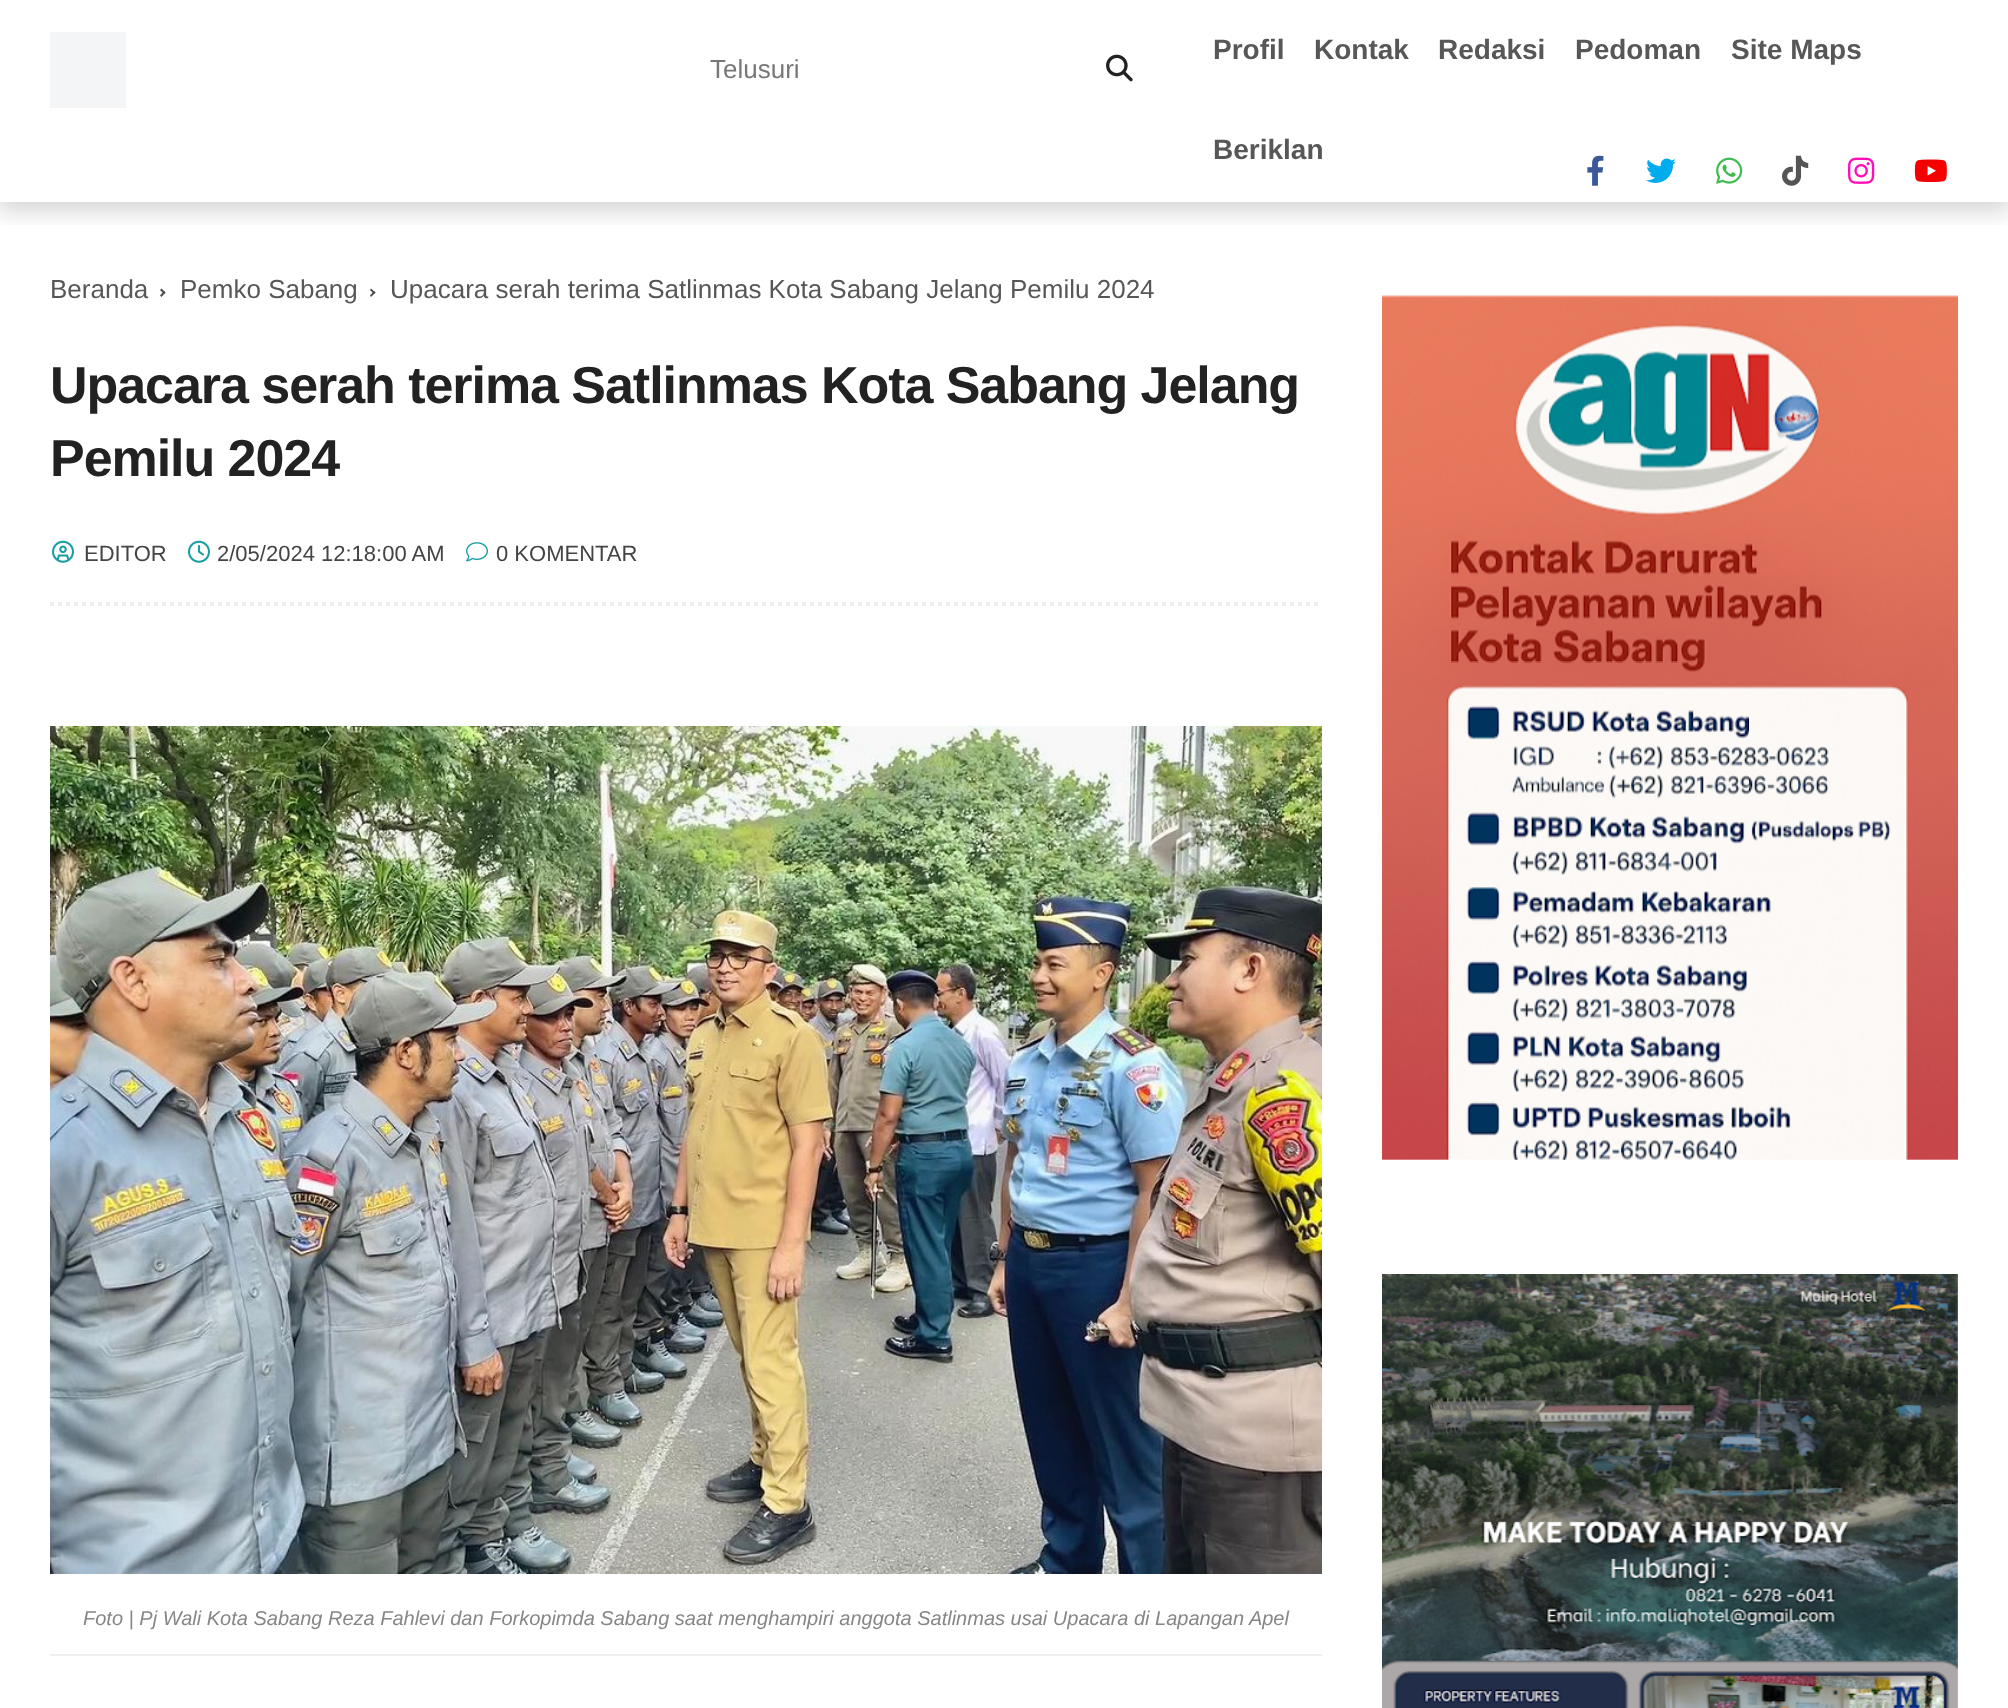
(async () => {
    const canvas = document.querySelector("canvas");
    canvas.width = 2008;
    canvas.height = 1708;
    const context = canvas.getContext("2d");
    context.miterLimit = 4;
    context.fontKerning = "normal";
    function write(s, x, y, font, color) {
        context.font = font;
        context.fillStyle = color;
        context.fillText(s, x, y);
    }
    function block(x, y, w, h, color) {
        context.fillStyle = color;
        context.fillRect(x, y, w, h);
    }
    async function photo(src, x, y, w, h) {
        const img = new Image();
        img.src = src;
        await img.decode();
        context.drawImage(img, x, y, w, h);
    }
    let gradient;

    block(0, 0, 2008, 1708, "rgb(255, 255, 255)");
    context.save();
    context.beginPath();
    context.rect(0, 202, 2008, 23);
    context.clip();
    context.fillStyle = "rgba(0, 0, 0, 0.16)";
    context.filter = "blur(11px)";
    context.beginPath();
    context.rect(-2, 6, 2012, 206);
    context.fill();
    context.filter = "none";
    context.restore();
    gradient = context.createLinearGradient(-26, 70, 126, 70);
    gradient.addColorStop(0.1, "rgb(243, 245, 246)");
    gradient.addColorStop(0.18, "rgb(239, 240, 241)");
    gradient.addColorStop(0.33, "rgb(243, 245, 246)");
    context.fillStyle = gradient;
    context.fillRect(50, 32, 76, 76);
    write("Telusuri", 710, 78, "26px Liberation Sans", "rgb(119, 119, 119)");
    await photo("media/1.png", 1106, 54, 27, 28);
    write("Profil", 1213, 59, "bold 28px Liberation Sans", "rgb(87, 87, 87)");
    write("Kontak", 1314, 59, "bold 28px Liberation Sans", "rgb(87, 87, 87)");
    write("Redaksi", 1438, 59, "bold 28px Liberation Sans", "rgb(87, 87, 87)");
    write("Pedoman", 1575, 59, "bold 28px Liberation Sans", "rgb(87, 87, 87)");
    write("Site Maps", 1731, 59, "bold 28px Liberation Sans", "rgb(87, 87, 87)");
    write("Beriklan", 1213, 159, "bold 28px Liberation Sans", "rgb(87, 87, 87)");
    await photo("media/2.png", 1587, 155, 17, 31);
    await photo("media/3.png", 1646, 158, 30, 25);
    await photo("media/4.png", 1716, 157, 27, 27);
    await photo("media/5.png", 1782, 155, 27, 31);
    await photo("media/6.png", 1848, 157, 27, 27);
    await photo("media/7.png", 1914, 159, 33, 23);
    write("Beranda", 50, 298, "26px Liberation Sans", "rgb(87, 87, 87)");
    context.fillStyle = "rgb(78, 77, 77)";
    context.beginPath();
    context.moveTo(160, 290);
    context.lineTo(161.5, 288.5);
    context.lineTo(165.5, 292.5);
    context.lineTo(164, 294);
    context.closePath();
    context.fill();
    context.beginPath();
    context.moveTo(160, 295.5);
    context.lineTo(164, 291);
    context.lineTo(165.5, 292.5);
    context.lineTo(161.5, 297);
    context.closePath();
    context.fill();
    write("Pemko Sabang", 180, 298, "26px Liberation Sans", "rgb(87, 87, 87)");
    context.fillStyle = "rgb(78, 77, 77)";
    context.beginPath();
    context.moveTo(370, 290);
    context.lineTo(371, 288.5);
    context.lineTo(375.5, 292.5);
    context.lineTo(374, 294);
    context.closePath();
    context.fill();
    context.beginPath();
    context.moveTo(370, 295.5);
    context.lineTo(374, 291);
    context.lineTo(375.5, 292.5);
    context.lineTo(371, 297);
    context.closePath();
    context.fill();
    write("Upacara serah terima Satlinmas Kota Sabang Jelang Pemilu 2024", 390, 298, "26px Liberation Sans", "rgb(87, 87, 87)");
    context.letterSpacing = "-1.05px";
    write("Upacara serah terima Satlinmas Kota Sabang Jelang", 50, 403, "bold 52px Liberation Sans", "rgb(34, 34, 34)");
    write("Pemilu 2024", 50, 476, "bold 52px Liberation Sans", "rgb(34, 34, 34)");
    await photo("media/8.png", 52, 540, 22, 23);
    context.letterSpacing = "0px";
    write("EDITOR", 84, 561, "22px Liberation Sans", "rgb(68, 68, 68)");
    await photo("media/9.png", 188, 540, 22, 23);
    write("2/05/2024 12:18:00 AM", 217, 561, "22px Liberation Sans", "rgb(68, 68, 68)");
    await photo("media/10.png", 466, 542, 22, 20);
    write("0 KOMENTAR", 496, 561, "22px Liberation Sans", "rgb(68, 68, 68)");
    context.beginPath();
    context.moveTo(50, 604);
    context.lineTo(1322, 604);
    context.strokeStyle = "rgb(238, 238, 238)";
    context.lineWidth = 4;
    context.setLineDash([4, 4]);
    context.stroke();
    await photo("media/11.png", 50, 726, 1272, 848);
    block(50, 1654, 1272, 2, "rgb(238, 238, 238)");
    write("Foto | Pj Wali Kota Sabang Reza Fahlevi dan Forkopimda Sabang saat menghampiri anggota Satlinmas usai Upacara di Lapangan Apel", 83, 1625, "italic 20px Liberation Sans", "rgb(134, 134, 134)");
    await photo("media/12.png", 1382, 295, 576, 865);
    await photo("media/13.png", 1382, 1274, 576, 434);
})();
